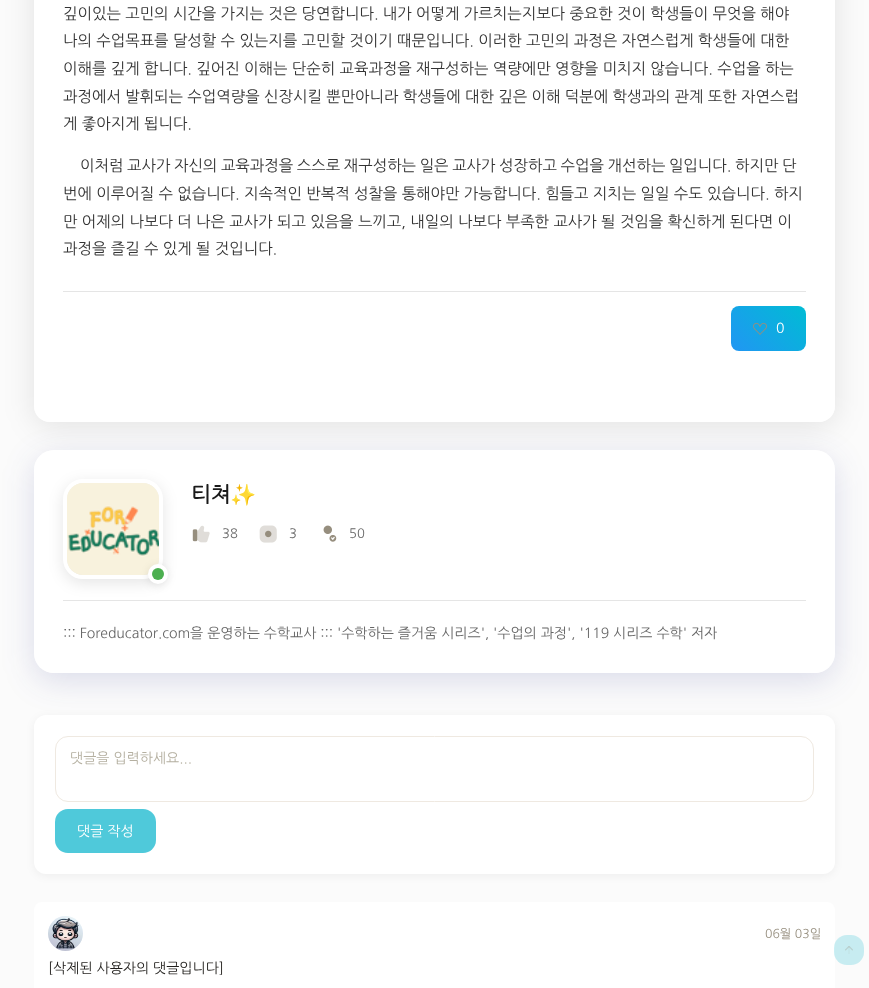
(async () => {
    const canvas = document.querySelector("canvas");
    canvas.width = 869;
    canvas.height = 988;
    const context = canvas.getContext("2d");
    context.miterLimit = 4;
    context.fontKerning = "none";
    function write(s, x, y, font, color) {
        context.font = font;
        context.fillStyle = color;
        context.fillText(s, x, y);
    }
    function block(x, y, w, h, color) {
        context.fillStyle = color;
        context.fillRect(x, y, w, h);
    }
    function card(x, y, w, h, r, color) {
        context.fillStyle = color;
        context.beginPath();
        context.roundRect(x, y, w, h, r);
        context.fill();
    }
    async function photo(src, x, y, w, h) {
        const img = new Image();
        img.src = src;
        await img.decode();
        context.drawImage(img, x, y, w, h);
    }
    let gradient;

    block(0, 0, 869, 988, "rgb(251, 251, 251)");
    context.save();
    context.beginPath();
    context.moveTo(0, 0);
    context.lineTo(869, 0);
    context.lineTo(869, 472);
    context.lineTo(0, 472);
    context.closePath();
    context.moveTo(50, -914);
    context.lineTo(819, -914);
    context.bezierCurveTo(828, -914, 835, -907, 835, -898);
    context.lineTo(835, 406);
    context.bezierCurveTo(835, 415, 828, 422, 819, 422);
    context.lineTo(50, 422);
    context.bezierCurveTo(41, 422, 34, 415, 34, 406);
    context.lineTo(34, -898);
    context.bezierCurveTo(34, -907, 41, -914, 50, -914);
    context.closePath();
    context.clip("evenodd");
    context.fillStyle = "rgba(0, 0, 0, 0.1)";
    context.filter = "blur(15px)";
    context.beginPath();
    context.roundRect(34, -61, 801, 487, 16);
    context.fill();
    context.filter = "none";
    context.restore();
    card(34, -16, 801, 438, 16, "rgba(255, 255, 255, 0.95)");
    write("깊이있는 고민의 시간을 가지는 것은 당연합니다. 내가 어떻게 가르치는지보다 중요한 것이 학생들이 무엇을 해야", 63, 19, "15.4px NanumGothic", "rgb(51, 51, 51)");
    write("나의 수업목표를 달성할 수 있는지를 고민할 것이기 때문입니다. 이러한 고민의 과정은 자연스럽게 학생들에 대한", 63, 46, "15.4px NanumGothic", "rgb(51, 51, 51)");
    write("이해를 깊게 합니다. 깊어진 이해는 단순히 교육과정을 재구성하는 역량에만 영향을 미치지 않습니다. 수업을 하는", 63, 74, "15.4px NanumGothic", "rgb(51, 51, 51)");
    write("과정에서 발휘되는 수업역량을 신장시킬 뿐만아니라 학생들에 대한 깊은 이해 덕분에 학생과의 관계 또한 자연스럽", 63, 102, "15.4px NanumGothic", "rgb(51, 51, 51)");
    write("게 좋아지게 됩니다.", 63, 129, "15.4px NanumGothic", "rgb(51, 51, 51)");
    context.wordSpacing = "-0.75px";
    write("이처럼 교사가 자신의 교육과정을 스스로 재구성하는 일은 교사가 성장하고 수업을 개선하는 일입니다. 하지만 단", 80, 171, "15.4px NanumGothic", "rgb(51, 51, 51)");
    context.wordSpacing = "0px";
    write("번에 이루어질 수 없습니다. 지속적인 반복적 성찰을 통해야만 가능합니다. 힘들고 지치는 일일 수도 있습니다. 하지", 63, 199, "15.4px NanumGothic", "rgb(51, 51, 51)");
    write("만 어제의 나보다 더 나은 교사가 되고 있음을 느끼고, 내일의 나보다 부족한 교사가 될 것임을 확신하게 된다면 이", 63, 227, "15.4px NanumGothic", "rgb(51, 51, 51)");
    write("과정을 즐길 수 있게 될 것입니다.", 63, 254, "15.4px NanumGothic", "rgb(51, 51, 51)");
    block(63, 291, 743, 1, "rgb(229, 229, 229)");
    gradient = context.createLinearGradient(739, 359, 799, 299);
    gradient.addColorStop(0, "rgb(33, 150, 243)");
    gradient.addColorStop(1, "rgb(0, 188, 212)");
    context.fillStyle = gradient;
    context.beginPath();
    context.roundRect(731, 306, 75, 45, 8);
    context.fill();
    await photo("media/1.png", 753, 322, 14, 13);
    write("0", 776, 333, "14px NanumGothic", "rgb(255, 255, 255)");
    context.fillStyle = "rgba(0, 0, 0, 0.05)";
    context.filter = "blur(4px)";
    context.beginPath();
    context.roundRect(34, 717, 801, 159, 12);
    context.fill();
    context.filter = "none";
    card(34, 715, 801, 159, 12, "rgb(255, 255, 255)");
    context.save();
    context.beginPath();
    context.moveTo(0, 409);
    context.lineTo(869, 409);
    context.lineTo(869, 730);
    context.lineTo(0, 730);
    context.closePath();
    context.moveTo(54, 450);
    context.lineTo(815, 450);
    context.bezierCurveTo(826, 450, 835, 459, 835, 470);
    context.lineTo(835, 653);
    context.bezierCurveTo(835, 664, 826, 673, 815, 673);
    context.lineTo(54, 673);
    context.bezierCurveTo(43, 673, 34, 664, 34, 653);
    context.lineTo(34, 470);
    context.bezierCurveTo(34, 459, 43, 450, 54, 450);
    context.closePath();
    context.clip("evenodd");
    context.fillStyle = "rgba(31, 38, 135, 0.15)";
    context.filter = "blur(16px)";
    context.beginPath();
    context.roundRect(34, 458, 801, 223, 20);
    context.fill();
    context.filter = "none";
    context.restore();
    card(34, 450, 801, 223, 20, "rgba(255, 255, 255, 0.9)");
    block(63, 600, 743, 1, "rgb(229, 229, 229)");
    context.fillStyle = "rgba(0, 0, 0, 0.1)";
    context.filter = "blur(7.5px)";
    context.beginPath();
    context.roundRect(63, 483, 100, 100, 20);
    context.fill();
    context.filter = "none";
    context.beginPath();
    context.roundRect(65, 481, 96, 96, 18);
    context.strokeStyle = "rgb(255, 255, 255)";
    context.lineWidth = 4;
    context.stroke();
    await photo("media/2.png", 67, 483, 92, 92);
    context.filter = "blur(4px)";
    context.beginPath();
    context.roundRect(148, 566, 20, 20, 10);
    context.fill();
    context.filter = "none";
    context.fillStyle = "rgb(255, 255, 255)";
    context.beginPath();
    context.arc(158, 574, 10, 0, Math.PI * 2);
    context.fill();
    context.fillStyle = "rgb(76, 175, 80)";
    context.beginPath();
    context.arc(158, 574, 6, 0, Math.PI * 2);
    context.fill();
    write("티쳐", 191, 502, "bold 21px NanumGothic", "rgb(26, 26, 26)");
    write("✨", 230, 502, "bold 21px Noto Color Emoji", "rgb(26, 26, 26)");
    await photo("media/3.png", 192, 529, 6, 13);
    await photo("media/4.png", 197, 525, 13, 18);
    write("38", 222, 538, "13px NanumGothic", "rgb(102, 102, 102)");
    await photo("media/5.png", 259, 525, 18, 18);
    await photo("media/6.png", 265, 530, 7, 8);
    write("3", 289, 538, "13px NanumGothic", "rgb(102, 102, 102)");
    await photo("media/7.png", 323, 525, 9, 9);
    await photo("media/8.png", 329, 535, 8, 7);
    write("50", 349, 538, "13px NanumGothic", "rgb(102, 102, 102)");
    write("::: Foreducator.com을 운영하는 수학교사 ::: '수학하는 즐거움 시리즈', '수업의 과정', '119 시리즈 수학' 저자", 63, 638, "14px NanumGothic", "rgb(102, 102, 102)");
    context.beginPath();
    context.roundRect(55.5, 736.5, 758, 65, 12.5);
    context.strokeStyle = "rgb(239, 233, 225)";
    context.lineWidth = 1;
    context.stroke();
    write("댓글을 입력하세요...", 70, 763, "14px NanumGothic", "rgb(181, 176, 161)");
    card(55, 809, 101, 44, 13, "rgb(79, 201, 218)");
    write("댓글 작성", 77, 836, "14px NanumGothic", "rgb(255, 255, 255)");
    card(34, 902, 801, 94, 8, "rgb(255, 255, 255)");
    await photo("media/9.png", 48, 916, 35, 35);
    write("06월 03일", 765, 938, "12.25px NanumGothic", "rgb(150, 142, 126)");
    write("[삭제된 사용자의 댓글입니다]", 48, 973, "14px NanumGothic", "rgb(33, 31, 28)");
    card(834, 935, 30, 30, 13, "rgba(79, 201, 218, 0.3)");
    await photo("media/10.png", 845, 946, 8, 5);
    block(848, 946, 2, 8, "rgba(150, 142, 126, 0.05)");
})();
